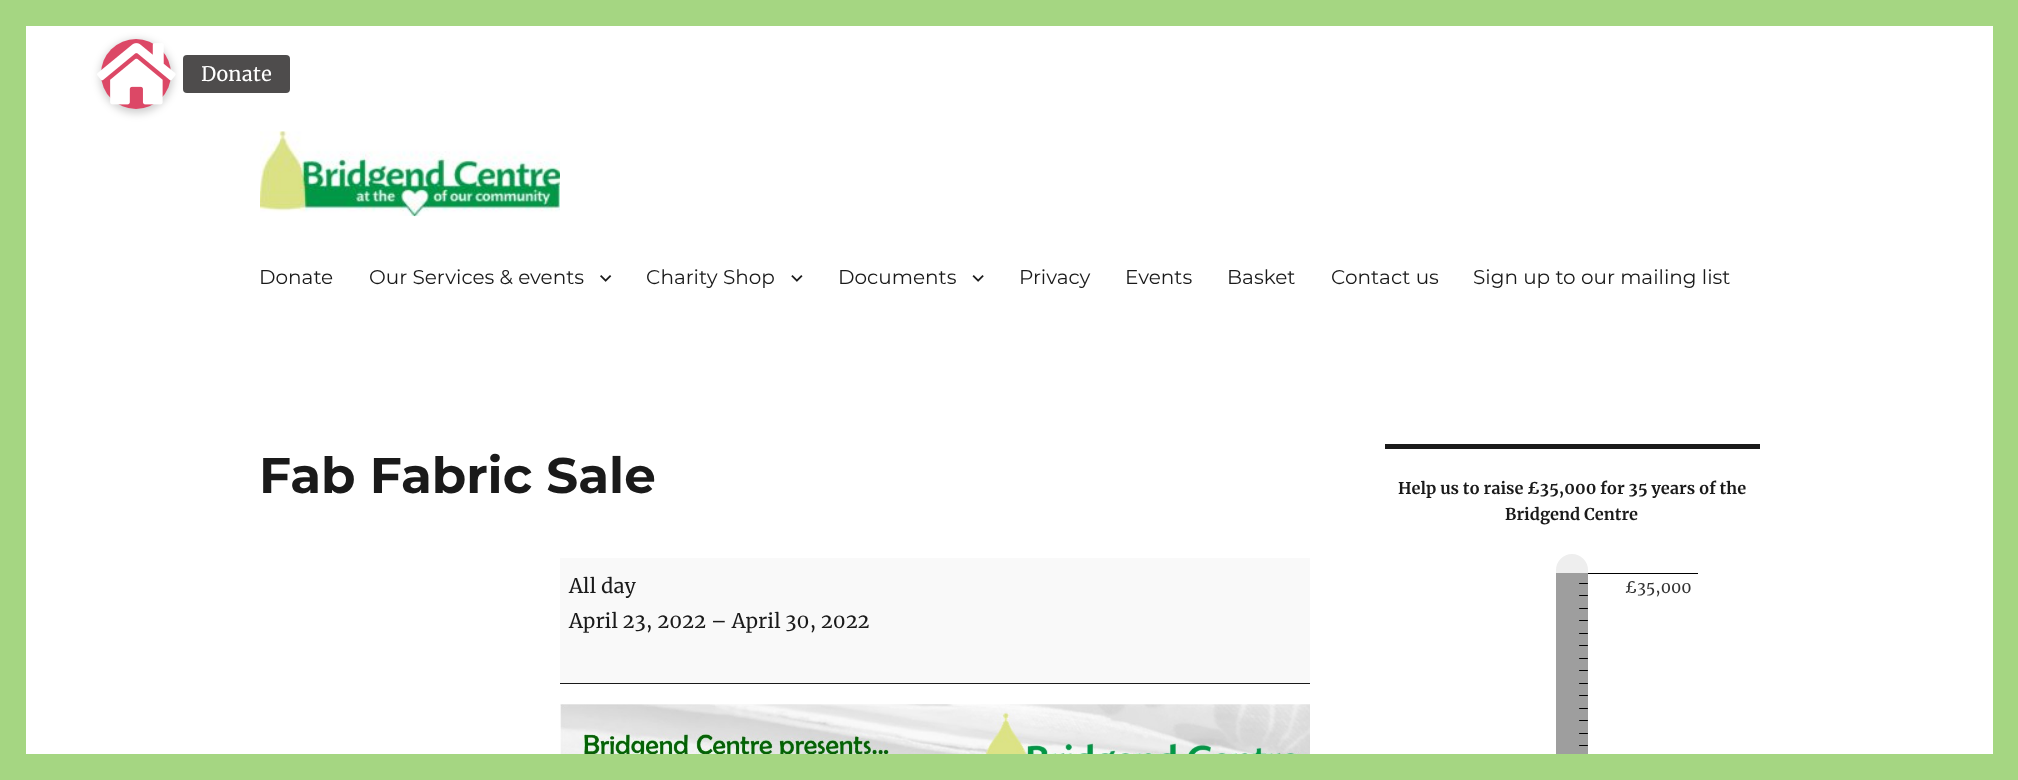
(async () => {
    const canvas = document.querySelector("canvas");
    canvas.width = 2018;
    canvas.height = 780;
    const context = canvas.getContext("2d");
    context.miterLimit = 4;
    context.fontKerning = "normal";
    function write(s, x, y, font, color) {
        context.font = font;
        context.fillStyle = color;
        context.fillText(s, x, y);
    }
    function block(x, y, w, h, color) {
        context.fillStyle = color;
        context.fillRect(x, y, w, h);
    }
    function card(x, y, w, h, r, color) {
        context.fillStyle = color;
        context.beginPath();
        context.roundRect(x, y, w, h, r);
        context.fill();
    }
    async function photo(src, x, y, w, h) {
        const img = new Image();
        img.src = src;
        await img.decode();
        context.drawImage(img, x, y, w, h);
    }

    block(0, 0, 2018, 780, "rgb(165, 214, 130)");
    block(26, 26, 1967, 728, "rgb(255, 255, 255)");
    context.fillStyle = "rgba(0, 0, 0, 0.2)";
    context.filter = "blur(4px)";
    context.beginPath();
    context.roundRect(100, 40, 73, 73, 36.5);
    context.fill();
    context.filter = "none";
    context.fillStyle = "rgb(220, 72, 102)";
    context.beginPath();
    context.arc(136, 74, 35, 0, Math.PI * 2);
    context.fill();
    await photo("media/1.png", 97, 43, 79, 62);
    card(183, 55, 107, 38, 4, "rgb(78, 76, 76)");
    write("Donate", 201, 81, "20px Merriweather", "rgb(255, 255, 255)");
    await photo("media/2.png", 260, 131, 300, 86);
    write("Donate", 259, 284, "100 20px Montserrat", "rgb(26, 26, 26)");
    write("Our Services & events", 369, 284, "100 20px Montserrat", "rgb(26, 26, 26)");
    await photo("media/3.png", 600, 275, 12, 7);
    write("Charity Shop", 646, 284, "100 20px Montserrat", "rgb(26, 26, 26)");
    await photo("media/4.png", 791, 275, 12, 7);
    write("Documents", 838, 284, "100 20px Montserrat", "rgb(26, 26, 26)");
    await photo("media/5.png", 972, 275, 12, 7);
    write("Privacy", 1019, 284, "100 20px Montserrat", "rgb(26, 26, 26)");
    write("Events", 1125, 284, "100 20px Montserrat", "rgb(26, 26, 26)");
    write("Basket", 1227, 284, "100 20px Montserrat", "rgb(26, 26, 26)");
    write("Contact us", 1331, 284, "100 20px Montserrat", "rgb(26, 26, 26)");
    write("Sign up to our mailing list", 1473, 284, "100 20px Montserrat", "rgb(26, 26, 26)");
    write("Fab Fabric Sale", 259, 493, "100 50px 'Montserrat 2'", "rgb(26, 26, 26)");
    block(560, 558, 750, 125, "rgb(249, 249, 249)");
    block(560, 683, 750, 1, "rgb(26, 26, 26)");
    write("All day", 569, 593, "20px Merriweather", "rgb(26, 26, 26)");
    write("April 23, 2022 – April 30, 2022", 569, 628, "20px Merriweather", "rgb(26, 26, 26)");
    await photo("media/6.png", 560, 704, 750, 50);
    block(1385, 444, 375, 5, "rgb(26, 26, 26)");
    write("Help us to raise £35,000 for 35 years of the", 1398, 494, "bold 16.25px Merriweather", "rgb(26, 26, 26)");
    write("Bridgend Centre", 1505, 520, "bold 16.25px Merriweather", "rgb(26, 26, 26)");
    context.fillStyle = "rgb(238, 238, 238)";
    context.beginPath();
    context.roundRect(1556, 554, 32, 19, [16, 16, 0, 0]);
    context.fill();
    block(1556, 573, 32, 181, "rgb(158, 158, 158)");
    await photo("media/7.png", 1579, 583, 9, 163);
    block(1588, 573, 110, 1, "rgb(0, 0, 0)");
    write("£35,000", 1625, 593, "16px Merriweather", "rgb(51, 51, 51)");
})();
